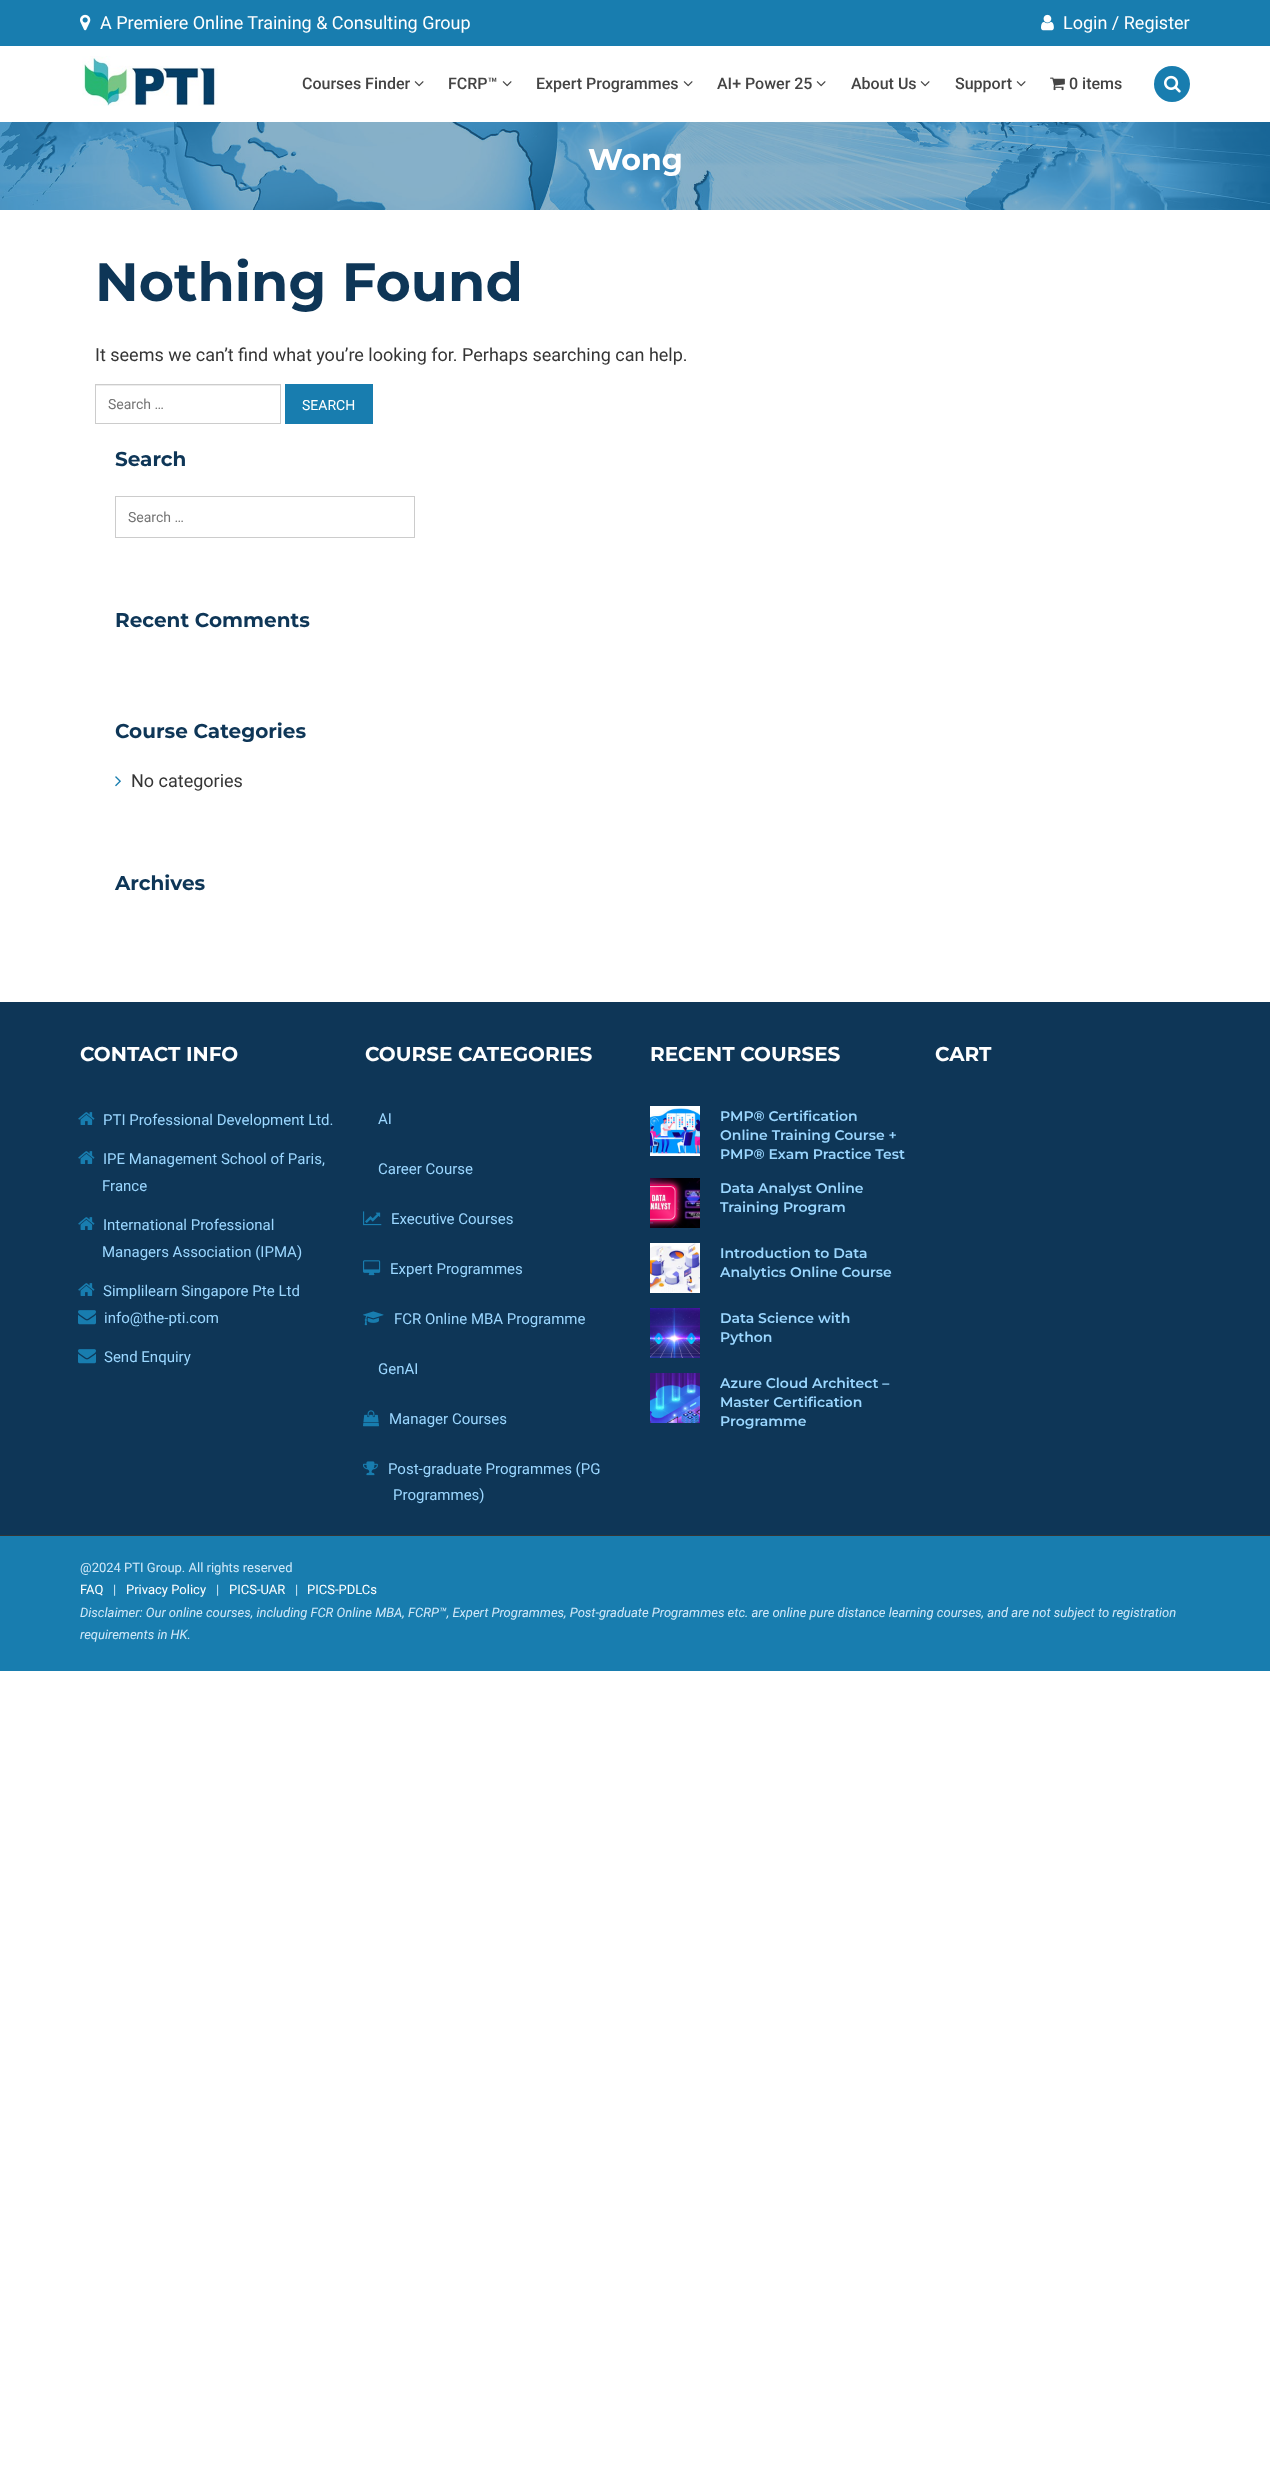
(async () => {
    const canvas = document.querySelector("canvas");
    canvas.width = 1270;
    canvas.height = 2492;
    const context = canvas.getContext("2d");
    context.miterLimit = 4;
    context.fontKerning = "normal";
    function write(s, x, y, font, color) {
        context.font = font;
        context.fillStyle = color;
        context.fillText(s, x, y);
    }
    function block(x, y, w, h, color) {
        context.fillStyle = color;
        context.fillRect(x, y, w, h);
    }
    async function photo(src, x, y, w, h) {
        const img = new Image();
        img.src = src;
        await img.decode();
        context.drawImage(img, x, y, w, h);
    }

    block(0, 0, 1270, 2492, "rgb(255, 255, 255)");
    block(0, 0, 1270, 46, "rgb(24, 125, 175)");
    await photo("media/1.png", 80, 14, 11, 17);
    write("A Premiere Online Training & Consulting Group", 100, 29, "18px Roboto", "rgb(255, 255, 255)");
    await photo("media/2.png", 1041, 14, 13, 17);
    write("Login / Register", 1063, 29, "18px Roboto", "rgb(255, 255, 255)");
    await photo("media/3.png", 82, 56, 136, 50);
    write("Courses Finder", 302, 89, "500 16px Roboto", "rgb(68, 68, 68)");
    await photo("media/4.png", 414, 81, 10, 6);
    write("FCRP™", 448, 89, "500 16px Roboto", "rgb(68, 68, 68)");
    await photo("media/4.png", 502, 81, 10, 6);
    write("Expert Programmes", 536, 89, "500 16px Roboto", "rgb(68, 68, 68)");
    await photo("media/4.png", 683, 81, 10, 6);
    write("AI+ Power 25", 717, 89, "500 16px Roboto", "rgb(68, 68, 68)");
    await photo("media/4.png", 816, 81, 10, 6);
    write("About Us", 851, 89, "500 16px Roboto", "rgb(68, 68, 68)");
    await photo("media/4.png", 920, 81, 10, 6);
    write("Support", 955, 89, "500 16px Roboto", "rgb(68, 68, 68)");
    await photo("media/4.png", 1016, 81, 10, 6);
    await photo("media/5.png", 1050, 77, 15, 14);
    write("0 items", 1069, 89, "500 16px Roboto", "rgb(68, 68, 68)");
    context.fillStyle = "rgb(24, 125, 175)";
    context.beginPath();
    context.arc(1172, 84, 18, 0, Math.PI * 2);
    context.fill();
    await photo("media/6.png", 1164, 75, 17, 18);
    await photo("media/7.png", 0, 122, 1270, 88);
    write("Wong", 588, 170, "bold 30px Montserrat", "rgb(255, 255, 255)");
    write("Nothing Found", 95, 301, "bold 54px Montserrat", "rgb(14, 54, 87)");
    write("It seems we can’t find what you’re looking for. Perhaps searching can help.", 95, 361, "18px Roboto", "rgb(53, 53, 53)");
    block(96, 385, 184, 1, "rgb(236, 236, 236)");
    context.strokeStyle = "rgb(204, 204, 204)";
    context.strokeRect(95.5, 384.5, 185, 39);
    write("Search …", 108, 409, "14px Roboto", "rgb(117, 117, 117)");
    block(285, 384, 88, 40, "rgb(24, 125, 175)");
    write("SEARCH", 302, 410, "14px Roboto", "rgb(255, 255, 255)");
    write("Search", 115, 466, "bold 20px Montserrat", "rgb(14, 54, 87)");
    context.strokeRect(115.5, 496.5, 299, 41);
    write("Search …", 128, 522, "14px Roboto", "rgb(117, 117, 117)");
    write("Recent Comments", 115, 627, "bold 20px Montserrat", "rgb(14, 54, 87)");
    write("Course Categories", 115, 738, "bold 20px Montserrat", "rgb(14, 54, 87)");
    await photo("media/8.png", 115, 776, 6, 11);
    write("No categories", 131, 787, "18px Roboto", "rgb(53, 53, 53)");
    write("Archives", 115, 890, "bold 20px Montserrat", "rgb(14, 54, 87)");
    block(0, 1002, 1270, 533, "rgb(14, 54, 87)");
    write("CONTACT INFO", 80, 1061, "bold 20px Montserrat", "rgb(255, 255, 255)");
    await photo("media/9.png", 78, 1112, 17, 13);
    write("PTI Professional Development Ltd.", 103, 1125, "15px Roboto", "rgb(155, 215, 255)");
    await photo("media/9.png", 78, 1151, 17, 13);
    write("IPE Management School of Paris,", 103, 1164, "15px Roboto", "rgb(155, 215, 255)");
    write("France", 102, 1191, "15px Roboto", "rgb(155, 215, 255)");
    await photo("media/9.png", 78, 1217, 17, 13);
    write("International Professional", 103, 1230, "15px Roboto", "rgb(155, 215, 255)");
    write("Managers Association (IPMA)", 102, 1257, "15px Roboto", "rgb(155, 215, 255)");
    await photo("media/9.png", 78, 1283, 17, 13);
    write("Simplilearn Singapore Pte Ltd", 103, 1296, "15px Roboto", "rgb(155, 215, 255)");
    await photo("media/10.png", 78, 1310, 18, 15);
    write("info@the-pti.com", 104, 1323, "15px Roboto", "rgb(155, 215, 255)");
    await photo("media/10.png", 78, 1349, 18, 15);
    write("Send Enquiry", 104, 1362, "15px Roboto", "rgb(155, 215, 255)");
    write("COURSE CATEGORIES", 365, 1061, "bold 20px Montserrat", "rgb(255, 255, 255)");
    write("AI", 378, 1124, "15px Roboto", "rgb(155, 215, 255)");
    write("Career Course", 378, 1174, "15px Roboto", "rgb(155, 215, 255)");
    await photo("media/11.png", 363, 1211, 19, 15);
    write("Executive Courses", 391, 1224, "15px Roboto", "rgb(155, 215, 255)");
    await photo("media/12.png", 363, 1260, 18, 16);
    write("Expert Programmes", 390, 1274, "15px Roboto", "rgb(155, 215, 255)");
    await photo("media/13.png", 363, 1311, 21, 15);
    write("FCR Online MBA Programme", 394, 1324, "15px Roboto", "rgb(155, 215, 255)");
    write("GenAI", 378, 1374, "15px Roboto", "rgb(155, 215, 255)");
    await photo("media/14.png", 363, 1410, 16, 17);
    write("Manager Courses", 389, 1424, "15px Roboto", "rgb(155, 215, 255)");
    await photo("media/15.png", 363, 1461, 15, 15);
    write("Post-graduate Programmes (PG", 388, 1474, "15px Roboto", "rgb(155, 215, 255)");
    write("Programmes)", 393, 1500, "15px Roboto", "rgb(155, 215, 255)");
    write("RECENT COURSES", 650, 1061, "bold 20px Montserrat", "rgb(255, 255, 255)");
    await photo("media/16.png", 650, 1106, 50, 50);
    write("PMP® Certification", 720, 1121, "600 14px Montserrat", "rgb(155, 215, 255)");
    write("Online Training Course +", 720, 1140, "600 14px Montserrat", "rgb(155, 215, 255)");
    write("PMP® Exam Practice Test", 720, 1159, "600 14px Montserrat", "rgb(155, 215, 255)");
    await photo("media/17.png", 650, 1178, 50, 50);
    write("Data Analyst Online", 720, 1193, "600 14px Montserrat", "rgb(155, 215, 255)");
    write("Training Program", 720, 1212, "600 14px Montserrat", "rgb(155, 215, 255)");
    await photo("media/18.png", 650, 1243, 50, 50);
    write("Introduction to Data", 720, 1258, "600 14px Montserrat", "rgb(155, 215, 255)");
    write("Analytics Online Course", 720, 1277, "600 14px Montserrat", "rgb(155, 215, 255)");
    await photo("media/19.png", 650, 1308, 50, 50);
    write("Data Science with", 720, 1323, "600 14px Montserrat", "rgb(155, 215, 255)");
    write("Python", 720, 1342, "600 14px Montserrat", "rgb(155, 215, 255)");
    await photo("media/20.png", 650, 1373, 50, 50);
    write("Azure Cloud Architect –", 720, 1388, "600 14px Montserrat", "rgb(155, 215, 255)");
    write("Master Certification", 720, 1407, "600 14px Montserrat", "rgb(155, 215, 255)");
    write("Programme", 720, 1426, "600 14px Montserrat", "rgb(155, 215, 255)");
    write("CART", 935, 1061, "bold 20px Montserrat", "rgb(255, 255, 255)");
    block(0, 1536, 1270, 135, "rgb(24, 125, 175)");
    block(0, 1535, 1270, 1, "rgb(53, 53, 53)");
    write("@2024 PTI Group. All rights reserved", 80, 1572, "13px Roboto", "rgb(209, 233, 249)");
    write("FAQ", 80, 1594, "13px Roboto", "rgb(255, 255, 255)");
    write("|", 113, 1594, "13px Roboto", "rgb(209, 233, 249)");
    write("Privacy Policy", 126, 1594, "13px Roboto", "rgb(255, 255, 255)");
    write("|", 216, 1594, "13px Roboto", "rgb(209, 233, 249)");
    write("PICS-UAR", 229, 1594, "13px Roboto", "rgb(255, 255, 255)");
    write("|", 295, 1594, "13px Roboto", "rgb(209, 233, 249)");
    write("PICS-PDLCs", 307, 1594, "13px Roboto", "rgb(255, 255, 255)");
    write("Disclaimer: Our online courses, including FCR Online MBA, FCRP™, Expert Programmes, Post-graduate Programmes etc. are online pure distance learning courses, and are not subject to registration", 80, 1617, "italic 13px Roboto", "rgb(209, 233, 249)");
    write("requirements in HK.", 80, 1639, "italic 13px Roboto", "rgb(209, 233, 249)");
})();
